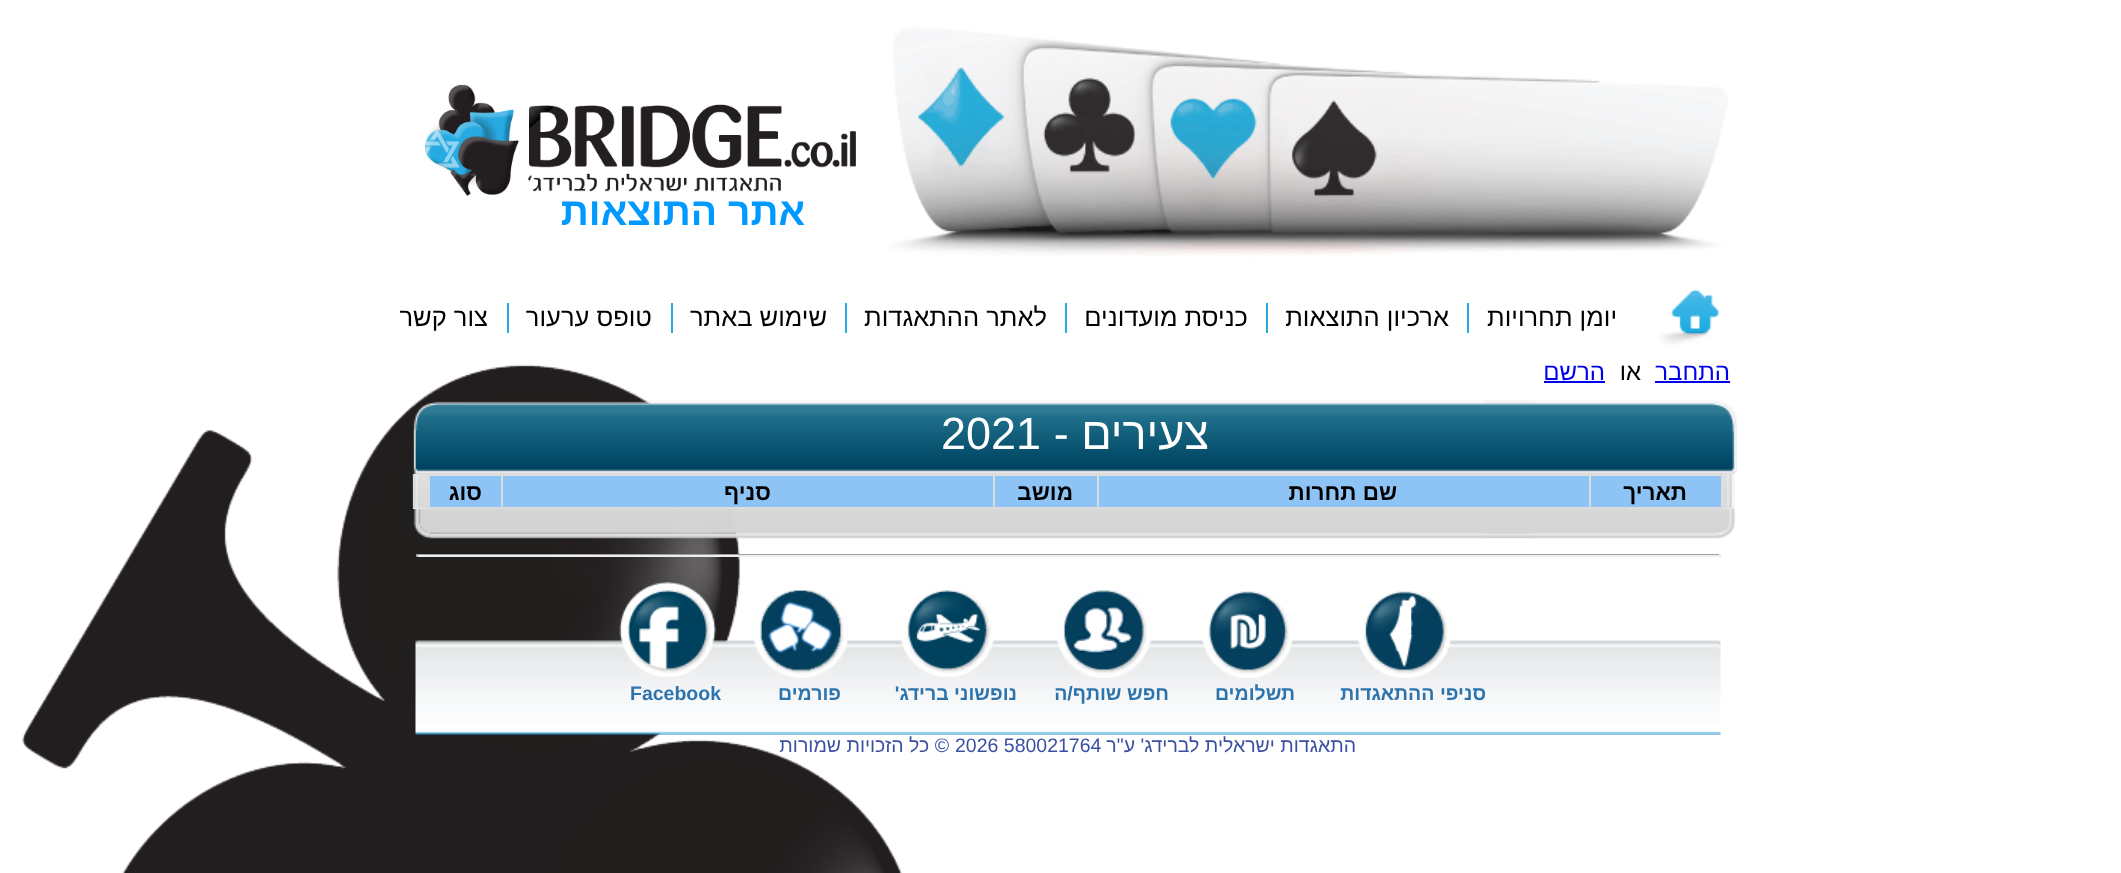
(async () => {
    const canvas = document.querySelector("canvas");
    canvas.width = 2121;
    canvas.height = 873;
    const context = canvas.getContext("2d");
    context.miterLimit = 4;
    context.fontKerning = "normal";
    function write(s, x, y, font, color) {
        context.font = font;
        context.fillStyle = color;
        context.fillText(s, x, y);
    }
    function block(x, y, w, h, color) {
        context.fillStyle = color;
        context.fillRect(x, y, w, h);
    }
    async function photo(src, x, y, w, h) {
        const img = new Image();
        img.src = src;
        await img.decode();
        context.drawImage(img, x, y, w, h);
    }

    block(0, 0, 2121, 873, "rgb(255, 255, 255)");
    await photo("media/1.png", 22, 364, 880, 509);
    await photo("media/2.png", 890, 27, 838, 231);
    await photo("media/3.png", 425, 84, 431, 112);
    context.direction = "rtl";
    write("אתר התוצאות", 805, 225, "bold 39px Liberation Sans", "rgb(0, 153, 255)");
    await photo("media/4.png", 1658, 289, 61, 56);
    write("יומן תחרויות", 1617, 326, "25.5px Liberation Sans", "rgb(0, 0, 0)");
    block(1467, 303, 2, 30, "rgb(36, 169, 224)");
    write("ארכיון התוצאות", 1449, 326, "25.5px Liberation Sans", "rgb(0, 0, 0)");
    block(1266, 303, 2, 30, "rgb(36, 169, 224)");
    write("כניסת מועדונים", 1248, 326, "25.5px Liberation Sans", "rgb(0, 0, 0)");
    block(1065, 303, 2, 30, "rgb(36, 169, 224)");
    write("לאתר ההתאגדות", 1047, 326, "25.5px Liberation Sans", "rgb(0, 0, 0)");
    block(845, 303, 2, 30, "rgb(36, 169, 224)");
    write("שימוש באתר", 827, 326, "25.5px Liberation Sans", "rgb(0, 0, 0)");
    block(671, 303, 2, 30, "rgb(36, 169, 224)");
    write("טופס ערעור", 652, 326, "25.5px Liberation Sans", "rgb(0, 0, 0)");
    block(507, 303, 2, 30, "rgb(36, 169, 224)");
    write("צור קשר", 488, 326, "25.5px Liberation Sans", "rgb(0, 0, 0)");
    write("התחבר", 1730, 380, "24px Liberation Sans", "rgb(0, 0, 238)");
    block(1655, 381, 75, 2, "rgb(0, 0, 238)");
    write("או", 1641, 380, "24px Liberation Sans", "rgb(0, 0, 0)");
    write("הרשם", 1605, 380, "24px Liberation Sans", "rgb(0, 0, 238)");
    block(1544, 381, 61, 2, "rgb(0, 0, 238)");
    await photo("media/5.png", 413, 400, 1324, 74);
    write("צעירים -", 1209, 449, "45px Liberation Sans", "rgb(255, 255, 255)");
    context.direction = "ltr";
    write("2021", 941, 449, "45px Liberation Sans", "rgb(255, 255, 255)");
    await photo("media/6.png", 1733, 474, 2, 35);
    block(413, 474, 319, 35, "rgb(255, 255, 255)");
    await photo("media/7.png", 412, 474, 1321, 35);
    block(430, 476, 1291, 31, "rgb(141, 195, 245)");
    block(428, 474, 75, 2, "rgb(221, 221, 221)");
    block(501, 474, 2, 35, "rgb(221, 221, 221)");
    block(501, 474, 494, 2, "rgb(221, 221, 221)");
    block(993, 474, 2, 35, "rgb(221, 221, 221)");
    block(993, 474, 105, 2, "rgb(221, 221, 221)");
    block(1097, 474, 2, 35, "rgb(221, 221, 221)");
    block(1097, 474, 493, 2, "rgb(221, 221, 221)");
    block(1589, 474, 2, 35, "rgb(221, 221, 221)");
    block(1589, 474, 133, 2, "rgb(221, 221, 221)");
    block(1721, 474, 2, 35, "rgb(221, 221, 221)");
    block(428, 507, 75, 2, "rgb(221, 221, 221)");
    block(501, 507, 494, 2, "rgb(221, 221, 221)");
    block(993, 507, 105, 2, "rgb(221, 221, 221)");
    block(1097, 507, 493, 2, "rgb(221, 221, 221)");
    block(1589, 507, 133, 2, "rgb(221, 221, 221)");
    context.direction = "rtl";
    write("תאריך", 1687, 500, "bold 22.5px Liberation Sans", "rgb(0, 0, 0)");
    write("שם תחרות", 1397, 500, "bold 22.5px Liberation Sans", "rgb(0, 0, 0)");
    write("מושב", 1073, 500, "bold 22.5px Liberation Sans", "rgb(0, 0, 0)");
    write("סניף", 771, 500, "bold 22.5px Liberation Sans", "rgb(0, 0, 0)");
    block(428, 502, 2, 7, "rgb(221, 221, 221)");
    write("סוג", 482, 500, "bold 22.5px Liberation Sans", "rgb(0, 0, 0)");
    await photo("media/8.png", 413, 508, 1323, 31);
    block(416, 554, 1305, 1, "rgb(159, 159, 159)");
    block(1719, 554, 2, 3, "rgb(238, 238, 238)");
    block(416, 555, 1305, 2, "rgb(238, 238, 238)");
    block(416, 554, 2, 3, "rgb(159, 159, 159)");
    await photo("media/9.png", 415, 640, 1306, 95);
    await photo("media/10.png", 1357, 591, 94, 87);
    write("סניפי ההתאגדות", 1486, 700, "bold 19.5px Liberation Sans", "rgb(45, 116, 173)");
    await photo("media/11.png", 1202, 591, 91, 87);
    write("תשלומים", 1295, 700, "bold 19.5px Liberation Sans", "rgb(45, 116, 173)");
    await photo("media/12.png", 1056, 590, 96, 88);
    write("חפש שותף/ה", 1169, 700, "bold 19.5px Liberation Sans", "rgb(45, 116, 173)");
    await photo("media/13.png", 901, 590, 93, 87);
    write("נופשוני ברידג'", 1017, 700, "bold 19.5px Liberation Sans", "rgb(45, 116, 173)");
    await photo("media/14.png", 753, 590, 96, 88);
    write("פורמים", 841, 700, "bold 19.5px Liberation Sans", "rgb(45, 116, 173)");
    await photo("media/15.png", 619, 582, 97, 95);
    context.direction = "ltr";
    write("Facebook", 630, 700, "bold 19.5px Liberation Sans", "rgb(45, 116, 173)");
    context.direction = "rtl";
    write("התאגדות ישראלית לברידג'", 1356, 752, "19.5px Liberation Sans", "rgb(59, 80, 162)");
    write("ע\"ר", 1135, 752, "19.5px Liberation Sans", "rgb(59, 80, 162)");
    context.direction = "ltr";
    write("2026 580021764", 955, 752, "19.5px Liberation Sans", "rgb(59, 80, 162)");
    context.direction = "rtl";
    write("© כל הזכויות שמורות", 949, 752, "19.5px Liberation Sans", "rgb(59, 80, 162)");
})();
